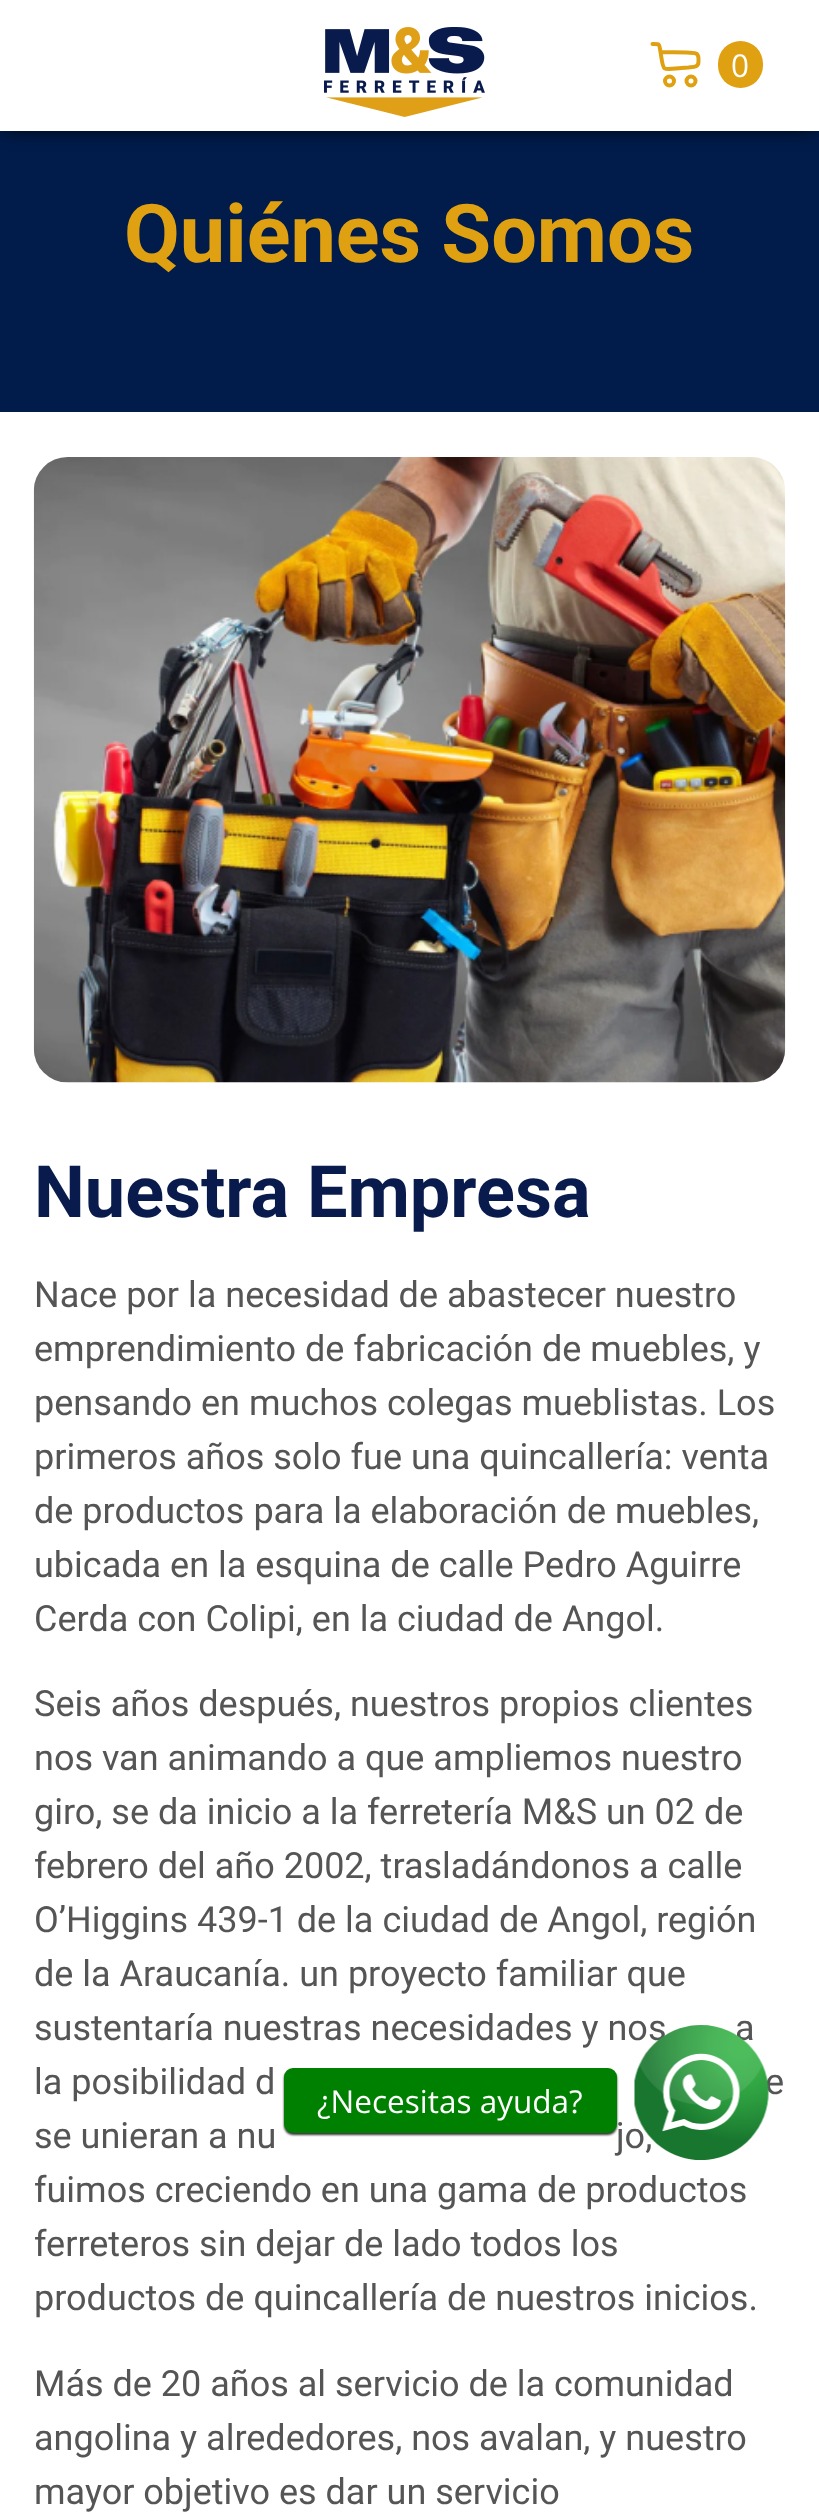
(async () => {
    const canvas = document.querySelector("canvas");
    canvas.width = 819;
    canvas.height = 2520;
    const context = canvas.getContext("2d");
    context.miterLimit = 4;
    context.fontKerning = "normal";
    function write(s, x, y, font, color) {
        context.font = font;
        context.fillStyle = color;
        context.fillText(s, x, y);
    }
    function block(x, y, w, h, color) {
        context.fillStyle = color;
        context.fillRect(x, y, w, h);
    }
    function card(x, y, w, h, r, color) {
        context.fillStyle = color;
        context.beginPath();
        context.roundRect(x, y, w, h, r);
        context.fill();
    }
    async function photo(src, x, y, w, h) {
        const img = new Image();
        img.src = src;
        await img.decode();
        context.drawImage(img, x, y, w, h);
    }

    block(0, 0, 819, 2520, "rgb(255, 255, 255)");
    block(0, 131, 819, 281, "rgb(1, 28, 75)");
    context.fillStyle = "rgb(0, 0, 0)";
    context.filter = "blur(10px)";
    context.beginPath();
    context.rect(2, 2, 815, 126);
    context.fill();
    context.filter = "none";
    block(0, 0, 819, 131, "rgb(255, 255, 255)");
    await photo("media/1.png", 324, 27, 161, 90);
    card(718, 41, 45, 47, 22.5, "rgb(223, 161, 17)");
    write("0", 731, 77, "31.5px Open Sans", "rgb(255, 255, 255)");
    context.beginPath();
    context.moveTo(652.5, 44);
    context.bezierCurveTo(660.5, 44, 659, 43.5, 660.5, 52);
    context.moveTo(660.5, 52);
    context.bezierCurveTo(664, 72, 660.5, 70, 681.5, 68);
    context.lineTo(688.5, 67.5);
    context.bezierCurveTo(693.5, 67, 698.5, 67.5, 698.5, 61.5);
    context.bezierCurveTo(699, 51.5, 695.5, 53, 686.5, 52.5);
    context.closePath();
    context.strokeStyle = "rgb(223, 161, 17)";
    context.lineWidth = 4;
    context.lineCap = "round";
    context.lineJoin = "round";
    context.stroke();
    context.beginPath();
    context.arc(669.5, 81, 4.5, 0, Math.PI * 2);
    context.stroke();
    context.beginPath();
    context.arc(691, 81, 4.5, 0, Math.PI * 2);
    context.stroke();
    context.fillStyle = "rgb(51, 51, 51)";
    context.filter = "blur(1px)";
    context.beginPath();
    context.roundRect(284, 2070, 333, 65, 9);
    context.fill();
    context.filter = "none";
    write("jo,", 616, 2148, "36px Roboto", "rgb(85, 85, 85)");
    card(284, 2068, 333, 65, 9, "rgb(0, 128, 0)");
    write("¿Necesitas ayuda?", 317, 2113, "31.5px Open Sans", "rgb(255, 255, 255)");
    write("sustentaría nuestras necesidades y nos", 34, 2040, "36px Roboto", "rgb(85, 85, 85)");
    write("a", 735, 2040, "36px Roboto", "rgb(85, 85, 85)");
    write("e", 765, 2094, "36px Roboto", "rgb(85, 85, 85)");
    await photo("media/2.png", 634, 2025, 135, 135);
    write("Quiénes Somos", 124, 262, "bold 81px Roboto", "rgb(223, 161, 17)");
    await photo("media/3.png", 33, 457, 753, 626);
    write("Nuestra Empresa", 34, 1217, "bold 72px Roboto", "rgb(8, 27, 76)");
    write("Nace por la necesidad de abastecer nuestro", 34, 1307, "36px Roboto", "rgb(85, 85, 85)");
    write("emprendimiento de fabricación de muebles, y", 34, 1361, "36px Roboto", "rgb(85, 85, 85)");
    write("pensando en muchos colegas mueblistas. Los", 34, 1415, "36px Roboto", "rgb(85, 85, 85)");
    write("primeros años solo fue una quincallería: venta", 34, 1469, "36px Roboto", "rgb(85, 85, 85)");
    write("de productos para la elaboración de muebles,", 34, 1523, "36px Roboto", "rgb(85, 85, 85)");
    write("ubicada en la esquina de calle Pedro Aguirre", 34, 1577, "36px Roboto", "rgb(85, 85, 85)");
    write("Cerda con Colipi, en la ciudad de Angol.", 34, 1631, "36px Roboto", "rgb(85, 85, 85)");
    write("Seis años después, nuestros propios clientes", 34, 1716, "36px Roboto", "rgb(85, 85, 85)");
    write("nos van animando a que ampliemos nuestro", 34, 1770, "36px Roboto", "rgb(85, 85, 85)");
    write("giro, se da inicio a la ferretería M&S un 02 de", 34, 1824, "36px Roboto", "rgb(85, 85, 85)");
    write("febrero del año 2002, trasladándonos a calle", 34, 1878, "36px Roboto", "rgb(85, 85, 85)");
    write("O’Higgins 439-1 de la ciudad de Angol, región", 34, 1932, "36px Roboto", "rgb(85, 85, 85)");
    write("de la Araucanía. un proyecto familiar que", 34, 1986, "36px Roboto", "rgb(85, 85, 85)");
    write("la posibilidad d", 34, 2094, "36px Roboto", "rgb(85, 85, 85)");
    write("se unieran a nu", 34, 2148, "36px Roboto", "rgb(85, 85, 85)");
    write("fuimos creciendo en una gama de productos", 34, 2202, "36px Roboto", "rgb(85, 85, 85)");
    write("ferreteros sin dejar de lado todos los", 34, 2256, "36px Roboto", "rgb(85, 85, 85)");
    write("productos de quincallería de nuestros inicios.", 34, 2310, "36px Roboto", "rgb(85, 85, 85)");
    write("Más de 20 años al servicio de la comunidad", 34, 2396, "36px Roboto", "rgb(85, 85, 85)");
    write("angolina y alrededores, nos avalan, y nuestro", 34, 2450, "36px Roboto", "rgb(85, 85, 85)");
    write("mayor objetivo es dar un servicio", 34, 2504, "36px Roboto", "rgb(85, 85, 85)");
})();
